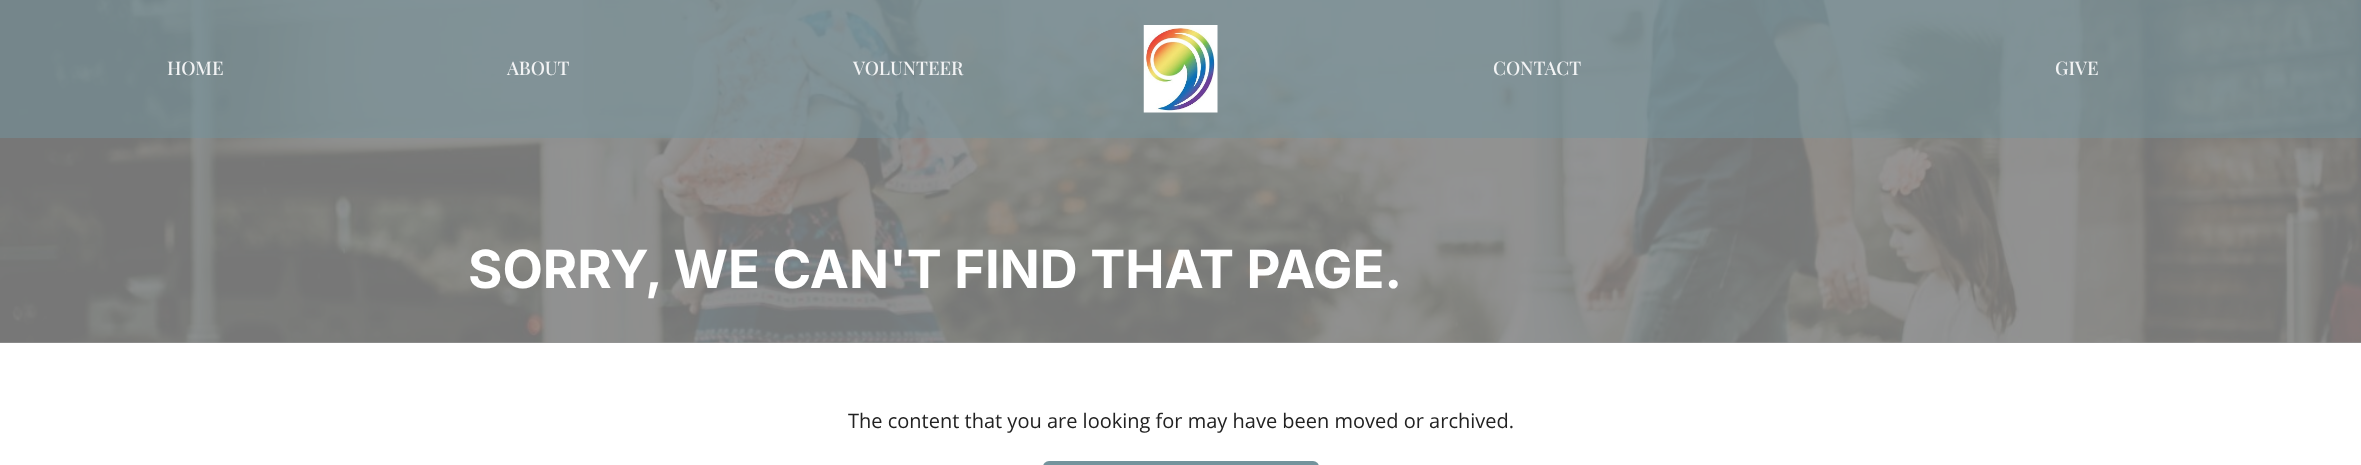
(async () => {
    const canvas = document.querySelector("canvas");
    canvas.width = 2361;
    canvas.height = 465;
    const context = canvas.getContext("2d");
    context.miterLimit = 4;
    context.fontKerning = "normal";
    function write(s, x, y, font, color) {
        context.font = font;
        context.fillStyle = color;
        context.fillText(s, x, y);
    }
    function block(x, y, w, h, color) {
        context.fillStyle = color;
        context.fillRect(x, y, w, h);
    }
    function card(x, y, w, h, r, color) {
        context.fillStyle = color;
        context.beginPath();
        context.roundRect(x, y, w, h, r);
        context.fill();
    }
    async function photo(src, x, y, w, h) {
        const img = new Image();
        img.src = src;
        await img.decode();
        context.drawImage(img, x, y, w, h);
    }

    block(0, 0, 2361, 465, "rgb(255, 255, 255)");
    block(0, 342, 2361, 1, "rgb(154, 154, 154)");
    await photo("media/2.png", 0, 0, 2361, 343);
    block(0, 0, 2361, 138, "rgba(115, 147, 156, 0.53)");
    write("HOME", 167, 75, "500 18.75px Playfair Display", "rgb(242, 243, 244)");
    write("ABOUT", 507, 75, "500 18.75px Playfair Display", "rgb(242, 243, 244)");
    write("VOLUNTEER", 853, 75, "500 18.75px Playfair Display", "rgb(242, 243, 244)");
    await photo("media/1.png", 1143, 25, 75, 88);
    write("CONTACT", 1493, 75, "500 18.75px Playfair Display", "rgb(242, 243, 244)");
    write("GIVE", 2055, 75, "500 18.75px Playfair Display", "rgb(242, 243, 244)");
    write("SORRY, WE CAN'T FIND THAT PAGE.", 468, 288, "bold 52.5px Inter", "rgb(255, 255, 255)");
    write("The content that you are looking for may have been moved or archived.", 848, 428, "20px Open Sans", "rgb(34, 34, 34)");
    card(1043, 461, 276, 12, 8, "rgb(115, 147, 156)");
})();
